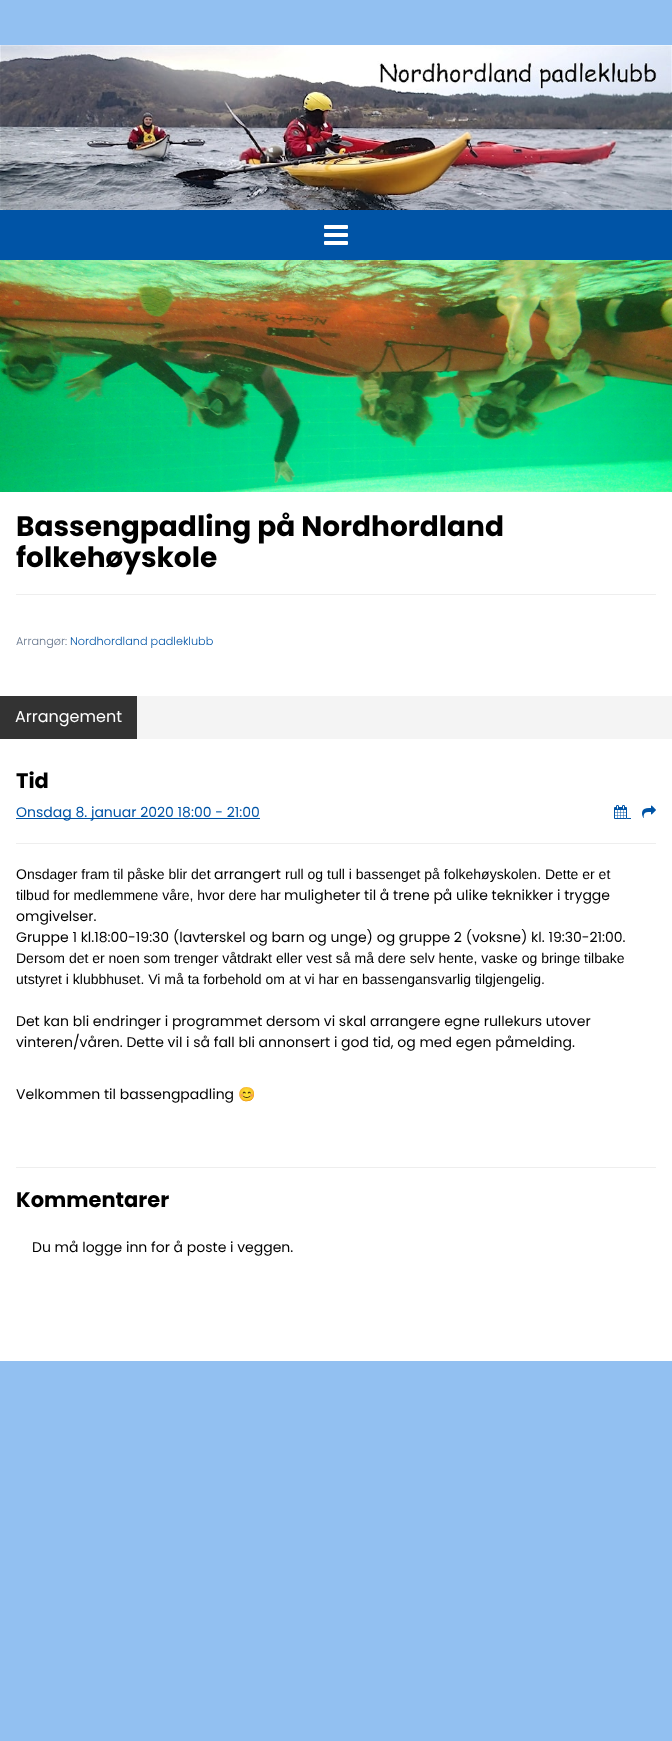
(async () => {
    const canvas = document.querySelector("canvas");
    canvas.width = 672;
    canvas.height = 1741;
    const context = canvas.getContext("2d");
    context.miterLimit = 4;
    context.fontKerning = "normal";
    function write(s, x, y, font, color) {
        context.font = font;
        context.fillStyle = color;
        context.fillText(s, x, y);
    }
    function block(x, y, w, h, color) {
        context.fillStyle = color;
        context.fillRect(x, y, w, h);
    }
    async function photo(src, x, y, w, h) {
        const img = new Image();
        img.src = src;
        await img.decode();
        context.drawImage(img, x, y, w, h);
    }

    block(0, 0, 672, 1741, "rgb(146, 192, 241)");
    await photo("media/1.png", 0, 45, 672, 165);
    block(0, 210, 672, 50, "rgb(0, 84, 166)");
    await photo("media/2.png", 324, 225, 24, 20);
    block(0, 492, 672, 869, "rgb(255, 255, 255)");
    await photo("media/3.png", 0, 260, 672, 232);
    write("Bassengpadling på Nordhordland", 16, 536, "bold 28px Poppins", "rgb(0, 0, 0)");
    write("folkehøyskole", 16, 567, "bold 28px Poppins", "rgb(0, 0, 0)");
    block(16, 594, 640, 1, "rgb(238, 238, 238)");
    write("Arrangør:", 16, 645, "300 11.25px Poppins", "rgb(100, 116, 139)");
    write("Nordhordland padleklubb", 70, 645, "300 11.25px Poppins", "rgb(0, 84, 166)");
    block(137, 696, 535, 43, "rgb(244, 244, 244)");
    block(0, 696, 137, 43, "rgb(51, 51, 51)");
    write("Arrangement", 15, 722, "16px Poppins", "rgb(255, 255, 255)");
    write("Tid", 16, 788, "bold 21px Poppins", "rgb(0, 0, 0)");
    block(16, 818, 244, 1, "rgb(0, 84, 166)");
    write("Onsdag 8. januar 2020 18:00 - 21:00", 16, 817, "14px Poppins", "rgb(0, 84, 166)");
    await photo("media/4.png", 614, 805, 13, 14);
    block(627, 818, 4, 1, "rgb(0, 84, 166)");
    await photo("media/5.png", 642, 805, 14, 13);
    block(16, 843, 640, 1, "rgb(238, 238, 238)");
    write("Onsdager fram til påske blir det", 16, 879, "14px Liberation Sans", "rgb(0, 0, 0)");
    write("arrangert", 214, 879, "14px Poppins", "rgb(0, 0, 0)");
    write("rull og tull i bassenget på folkehøyskolen. Dette er et", 285, 879, "14px Liberation Sans", "rgb(0, 0, 0)");
    write("tilbud for medlemmene våre, hvor dere har", 16, 900, "14px Liberation Sans", "rgb(0, 0, 0)");
    write("muligheter til å trene på ulike teknikker i trygge", 284, 900, "14px Poppins", "rgb(0, 0, 0)");
    write("omgivelser.", 16, 921, "14px Poppins", "rgb(0, 0, 0)");
    write("Gruppe 1 kl.18:00-19:30 (lavterskel og barn og unge) og gruppe 2 (voksne) kl. 19:30-21:00.", 16, 942, "14px Poppins", "rgb(0, 0, 0)");
    write("Dersom det er noen som trenger våtdrakt eller vest så må dere selv hente, vaske og bringe tilbake", 16, 963, "14px Liberation Sans", "rgb(0, 0, 0)");
    write("utstyret i klubbhuset. Vi må ta forbehold om at vi har en bassengansvarlig tilgjengelig.", 16, 984, "14px Liberation Sans", "rgb(0, 0, 0)");
    write("Det kan bli endringer i programmet dersom vi skal arrangere egne rullekurs utover", 16, 1026, "14px Poppins", "rgb(0, 0, 0)");
    write("vinteren/våren. Dette vil i så fall bli annonsert i god tid, og med egen påmelding.", 16, 1047, "14px Poppins", "rgb(0, 0, 0)");
    write("Velkommen til bassengpadling", 16, 1099, "14px Poppins", "rgb(0, 0, 0)");
    write("😊", 238, 1099, "14px Noto Color Emoji", "rgb(0, 0, 0)");
    block(16, 1167, 640, 1, "rgb(238, 238, 238)");
    write("Kommentarer", 16, 1207, "bold 21px Poppins", "rgb(0, 0, 0)");
    write("Du må logge inn for å poste i veggen.", 32, 1252, "14px Poppins", "rgb(0, 0, 0)");
})();
